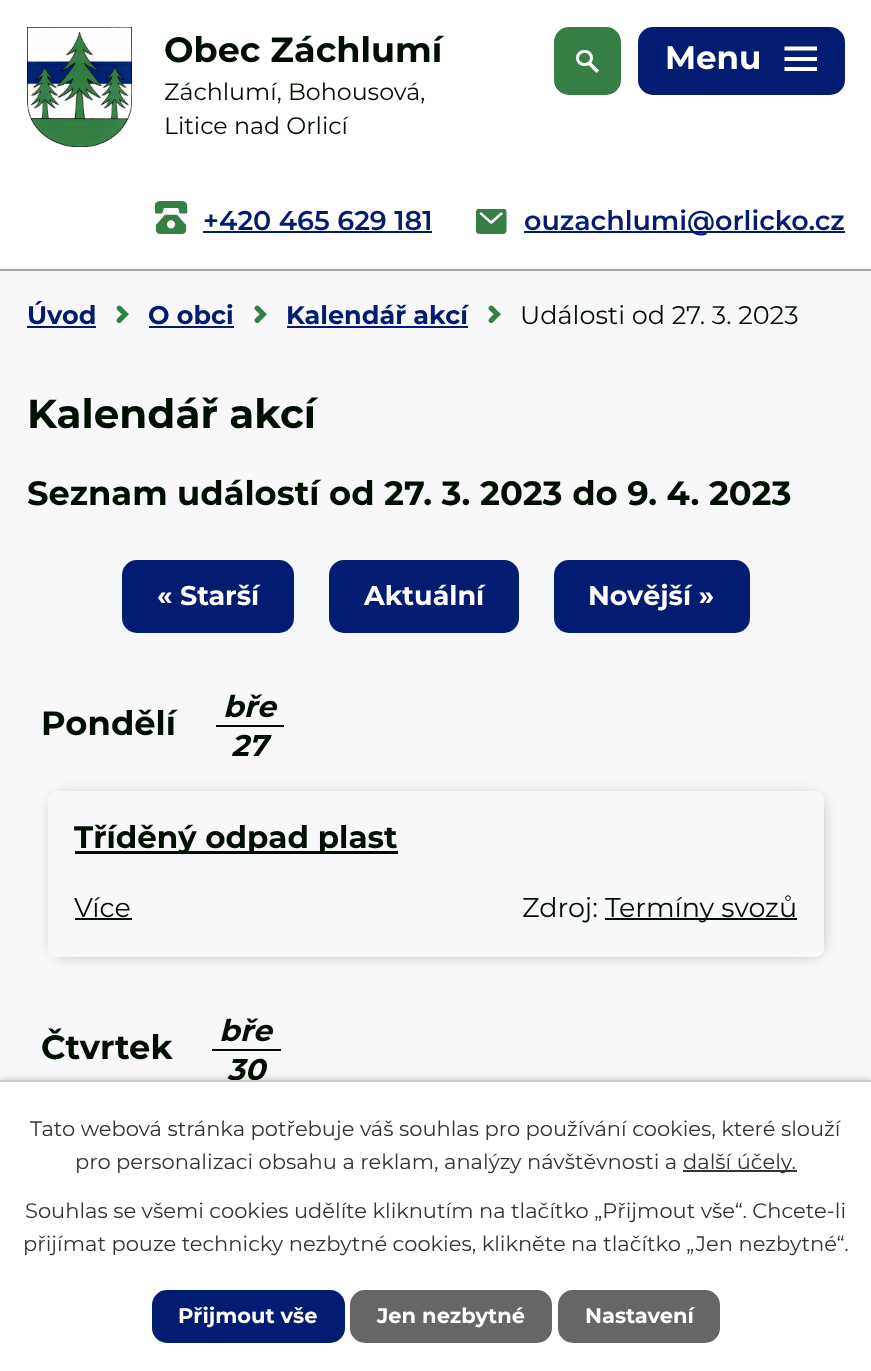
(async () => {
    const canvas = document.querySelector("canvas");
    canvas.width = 871;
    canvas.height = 1371;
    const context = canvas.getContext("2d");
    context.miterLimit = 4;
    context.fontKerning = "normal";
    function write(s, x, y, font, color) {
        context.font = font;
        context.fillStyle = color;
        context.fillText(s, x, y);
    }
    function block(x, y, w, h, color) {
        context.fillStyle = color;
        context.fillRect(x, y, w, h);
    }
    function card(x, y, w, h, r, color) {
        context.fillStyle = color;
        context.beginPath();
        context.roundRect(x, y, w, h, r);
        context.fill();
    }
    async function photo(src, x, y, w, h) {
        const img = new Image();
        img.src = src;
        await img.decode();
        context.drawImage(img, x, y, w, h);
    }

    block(0, 0, 871, 1371, "rgb(248, 248, 251)");
    block(0, 0, 871, 269, "rgb(255, 255, 255)");
    block(0, 269, 871, 2, "rgb(163, 163, 163)");
    await photo("media/1.png", 27, 27, 105, 120);
    write("Obec Záchlumí", 164, 62, "bold 35px Montserrat", "rgb(0, 15, 1)");
    write("Záchlumí, Bohousová,", 164, 100, "23.75px Montserrat", "rgb(0, 15, 1)");
    write("Litice nad Orlicí", 164, 134, "23.75px Montserrat", "rgb(0, 15, 1)");
    context.fillStyle = "rgb(53, 126, 70)";
    context.beginPath();
    context.roundRect(555, 28, 65, 66, 14);
    context.fill();
    context.strokeStyle = "rgb(53, 126, 70)";
    context.lineWidth = 2;
    context.stroke();
    context.beginPath();
    context.roundRect(577.5, 51.5, 14, 13, 6.5);
    context.strokeStyle = "rgb(255, 255, 255)";
    context.lineWidth = 3;
    context.stroke();
    context.fillStyle = "rgb(255, 255, 255)";
    context.beginPath();
    context.moveTo(590.5, 62);
    context.lineTo(599, 70.5);
    context.lineTo(596.5, 73);
    context.lineTo(588, 64.5);
    context.closePath();
    context.fill();
    await photo("media/2.png", 155, 201, 33, 33);
    write("+420 465 629 181", 203, 230, "600 27px Montserrat", "rgb(2, 28, 113)");
    block(203, 231, 229, 2, "rgb(2, 28, 113)");
    await photo("media/3.png", 476, 209, 31, 25);
    block(524, 231, 321, 2, "rgb(2, 28, 113)");
    write("ouzachlumi@orlicko.cz", 524, 230, "600 27px Montserrat", "rgb(2, 28, 113)");
    card(638, 27, 207, 68, 15, "rgb(2, 28, 113)");
    write("Menu", 665, 69, "bold 32.5px Montserrat", "rgb(255, 255, 255)");
    context.beginPath();
    context.moveTo(784.5, 71);
    context.lineTo(784.5, 67);
    context.lineTo(817, 67);
    context.lineTo(817, 71);
    context.closePath();
    context.moveTo(784.5, 46.5);
    context.lineTo(817, 46.5);
    context.lineTo(817, 50.5);
    context.lineTo(784.5, 50.5);
    context.closePath();
    context.moveTo(784.5, 61);
    context.lineTo(784.5, 57);
    context.lineTo(817, 57);
    context.lineTo(817, 61);
    context.closePath();
    context.fill();
    write("Úvod", 27, 324, "bold 25.5px Montserrat", "rgb(2, 28, 113)");
    block(27, 326, 69, 2, "rgb(2, 28, 113)");
    await photo("media/4.png", 116, 305, 13, 18);
    write("O obci", 148, 324, "bold 25.5px Montserrat", "rgb(2, 28, 113)");
    block(149, 326, 85, 2, "rgb(2, 28, 113)");
    await photo("media/4.png", 254, 305, 13, 18);
    write("Kalendář akcí", 286, 324, "bold 25.5px Montserrat", "rgb(2, 28, 113)");
    block(287, 326, 181, 2, "rgb(2, 28, 113)");
    await photo("media/4.png", 488, 305, 13, 18);
    write("Události od 27. 3. 2023", 520, 324, "25.5px Montserrat", "rgb(0, 15, 1)");
    write("Kalendář akcí", 27, 428, "bold 40.5px Montserrat", "rgb(0, 15, 1)");
    write("Seznam událostí od 27. 3. 2023 do 9. 4. 2023", 27, 505, "bold 33.75px Montserrat", "rgb(0, 15, 1)");
    card(122, 560, 172, 73, 15, "rgb(2, 28, 113)");
    write("« Starší", 157, 605, "bold 27px Montserrat", "rgb(255, 255, 255)");
    card(329, 560, 190, 73, 15, "rgb(2, 28, 113)");
    write("Aktuální", 364, 605, "bold 27px Montserrat", "rgb(255, 255, 255)");
    card(554, 560, 196, 73, 15, "rgb(2, 28, 113)");
    write("Novější »", 588, 605, "bold 27px Montserrat", "rgb(255, 255, 255)");
    write("Pondělí", 41, 735, "bold 33.75px Montserrat", "rgb(0, 15, 1)");
    block(216, 725, 68, 2, "rgb(0, 15, 1)");
    write("bře", 223, 717, "italic bold 30px Montserrat", "rgb(0, 15, 1)");
    write("27", 231, 756, "italic bold 30px Montserrat", "rgb(0, 15, 1)");
    context.save();
    context.beginPath();
    context.moveTo(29, 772);
    context.lineTo(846, 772);
    context.lineTo(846, 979);
    context.lineTo(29, 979);
    context.closePath();
    context.moveTo(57, 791);
    context.lineTo(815, 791);
    context.bezierCurveTo(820, 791, 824, 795, 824, 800);
    context.lineTo(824, 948);
    context.bezierCurveTo(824, 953, 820, 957, 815, 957);
    context.lineTo(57, 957);
    context.bezierCurveTo(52, 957, 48, 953, 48, 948);
    context.lineTo(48, 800);
    context.bezierCurveTo(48, 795, 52, 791, 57, 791);
    context.closePath();
    context.clip("evenodd");
    context.fillStyle = "rgb(136, 136, 136)";
    context.filter = "blur(9px)";
    context.beginPath();
    context.roundRect(57, 800, 761, 151, 1.5);
    context.fill();
    context.filter = "none";
    context.restore();
    block(75, 851, 323, 3, "rgb(0, 15, 1)");
    write("Tříděný odpad plast", 74, 848, "bold 31px Montserrat", "rgb(0, 15, 1)");
    write("Více", 74, 917, "27px Montserrat", "rgb(0, 15, 1)");
    block(75, 918, 57, 2, "rgb(0, 15, 1)");
    write("Zdroj:", 522, 917, "27px Montserrat", "rgb(0, 15, 1)");
    block(605, 918, 192, 2, "rgb(0, 15, 1)");
    write("Termíny svozů", 605, 917, "27px Montserrat", "rgb(0, 15, 1)");
    write("Čtvrtek", 41, 1059, "bold 33.75px Montserrat", "rgb(0, 15, 1)");
    block(212, 1049, 69, 2, "rgb(0, 15, 1)");
    write("bře", 219, 1041, "italic bold 30px Montserrat", "rgb(0, 15, 1)");
    write("30", 227, 1080, "italic bold 30px Montserrat", "rgb(0, 15, 1)");
    context.fillStyle = "rgba(0, 0, 0, 0.2)";
    context.filter = "blur(4px)";
    context.beginPath();
    context.rect(0, 1080, 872, 291);
    context.fill();
    context.filter = "none";
    block(0, 1082, 871, 289, "rgb(255, 255, 255)");
    block(0, 1080, 871, 2, "rgb(204, 204, 204)");
    write("Tato webová stránka potřebuje váš souhlas pro používání cookies, které slouží", 30, 1136, "21px Montserrat", "rgb(51, 51, 51)");
    write("pro personalizaci obsahu a reklam, analýzy návštěvnosti a", 75, 1169, "21px Montserrat", "rgb(51, 51, 51)");
    block(683, 1170, 114, 2, "rgb(51, 51, 51)");
    write("další účely.", 683, 1169, "21px Montserrat", "rgb(51, 51, 51)");
    write("Souhlas se všemi cookies udělíte kliknutím na tlačítko „Přijmout vše“. Chcete-li", 25, 1218, "21px Montserrat", "rgb(51, 51, 51)");
    write("přijímat pouze technicky nezbytné cookies, klikněte na tlačítko „Jen nezbytné“.", 23, 1251, "21px Montserrat", "rgb(51, 51, 51)");
    card(152, 1290, 193, 53, 15, "rgb(2, 28, 113)");
    write("Přijmout vše", 178, 1323, "bold 21px Montserrat", "rgb(255, 255, 255)");
    card(350, 1290, 202, 53, 15, "rgb(102, 102, 102)");
    write("Jen nezbytné", 377, 1323, "bold 21px Montserrat", "rgb(255, 255, 255)");
    card(558, 1290, 162, 53, 15, "rgb(102, 102, 102)");
    write("Nastavení", 585, 1323, "bold 21px Montserrat", "rgb(255, 255, 255)");
})();
